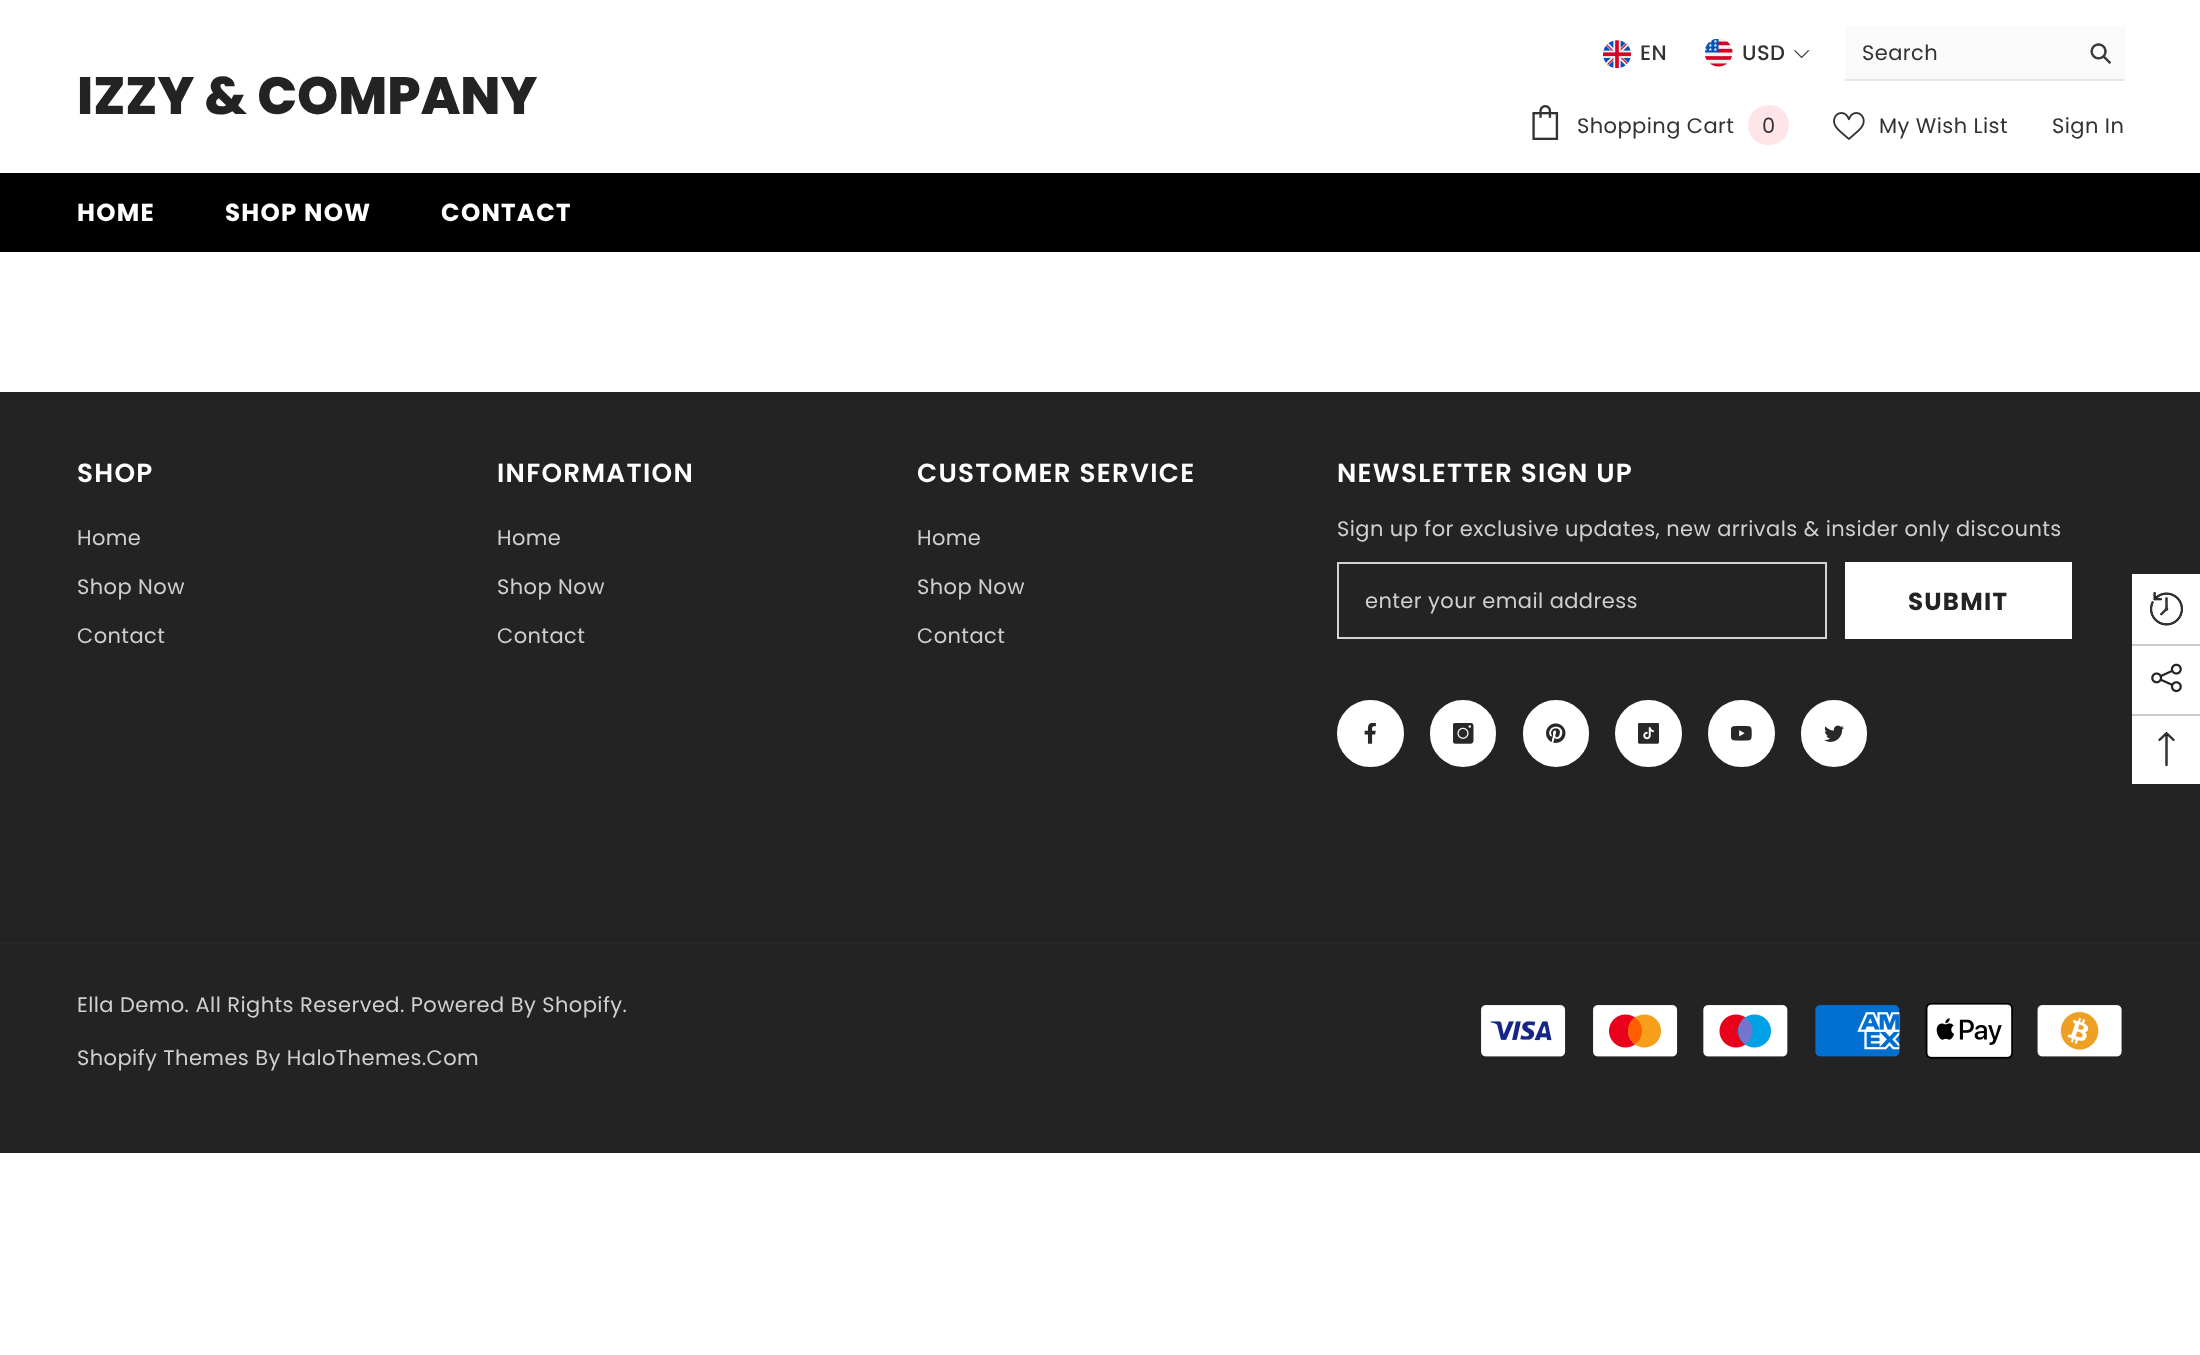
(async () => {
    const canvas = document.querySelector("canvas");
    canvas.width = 2200;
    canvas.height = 1355;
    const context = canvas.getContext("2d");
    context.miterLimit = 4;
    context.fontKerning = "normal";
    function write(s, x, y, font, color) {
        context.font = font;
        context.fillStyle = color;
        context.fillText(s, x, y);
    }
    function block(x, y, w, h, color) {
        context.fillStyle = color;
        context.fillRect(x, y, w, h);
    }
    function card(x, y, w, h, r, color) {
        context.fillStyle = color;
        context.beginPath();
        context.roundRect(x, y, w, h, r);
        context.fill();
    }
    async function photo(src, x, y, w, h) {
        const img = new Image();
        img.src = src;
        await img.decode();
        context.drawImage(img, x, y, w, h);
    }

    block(0, 0, 2200, 1355, "rgb(255, 255, 255)");
    await photo("media/1.png", 1603, 40, 28, 28);
    context.letterSpacing = "0.42px";
    write("EN", 1640, 60, "500 21px Poppins", "rgb(50, 50, 50)");
    await photo("media/2.png", 1705, 39, 28, 28);
    write("USD", 1742, 60, "500 21px Poppins", "rgb(50, 50, 50)");
    await photo("media/3.png", 1794, 50, 16, 9);
    block(1845, 26, 280, 53, "rgb(250, 250, 250)");
    block(1845, 79, 280, 2, "rgb(231, 231, 231)");
    write("Search", 1862, 60, "21px Poppins", "rgb(50, 50, 50)");
    await photo("media/4.png", 2090, 43, 22, 21);
    context.letterSpacing = "0px";
    write("IZZY & COMPANY", 77, 114, "800 52.5px Poppins", "rgb(35, 35, 35)");
    await photo("media/5.png", 1532, 105, 27, 35);
    context.letterSpacing = "0.42px";
    write("Shopping Cart", 1577, 133, "21px Poppins", "rgb(50, 50, 50)");
    card(1748, 105, 41, 40, 20, "rgb(255, 229, 232)");
    context.letterSpacing = "0px";
    write("0", 1762, 133, "21px Poppins", "rgb(50, 50, 50)");
    await photo("media/6.png", 1833, 112, 32, 28);
    context.letterSpacing = "0.42px";
    write("My Wish List", 1879, 133, "21px Poppins", "rgb(50, 50, 50)");
    write("Sign In", 2052, 133, "21px Poppins", "rgb(50, 50, 50)");
    block(0, 173, 2200, 79, "rgb(0, 0, 0)");
    context.letterSpacing = "1.25px";
    write("HOME", 77, 221, "bold 24.5px Poppins", "rgb(255, 255, 255)");
    write("SHOP NOW", 225, 221, "bold 24.5px Poppins", "rgb(255, 255, 255)");
    write("CONTACT", 441, 221, "bold 24.5px Poppins", "rgb(255, 255, 255)");
    block(0, 392, 2200, 550, "rgb(35, 35, 35)");
    context.letterSpacing = "1.3px";
    write("SHOP", 77, 482, "600 26.25px Poppins", "rgb(255, 255, 255)");
    context.letterSpacing = "0.42px";
    write("Home", 77, 545, "21px Poppins", "rgb(207, 207, 207)");
    write("Shop Now", 77, 594, "21px Poppins", "rgb(207, 207, 207)");
    write("Contact", 77, 643, "21px Poppins", "rgb(207, 207, 207)");
    context.letterSpacing = "1.3px";
    write("INFORMATION", 497, 482, "600 26.25px Poppins", "rgb(255, 255, 255)");
    context.letterSpacing = "0.42px";
    write("Home", 497, 545, "21px Poppins", "rgb(207, 207, 207)");
    write("Shop Now", 497, 594, "21px Poppins", "rgb(207, 207, 207)");
    write("Contact", 497, 643, "21px Poppins", "rgb(207, 207, 207)");
    context.letterSpacing = "1.3px";
    write("CUSTOMER SERVICE", 917, 482, "600 26.25px Poppins", "rgb(255, 255, 255)");
    context.letterSpacing = "0.42px";
    write("Home", 917, 545, "21px Poppins", "rgb(207, 207, 207)");
    write("Shop Now", 917, 594, "21px Poppins", "rgb(207, 207, 207)");
    write("Contact", 917, 643, "21px Poppins", "rgb(207, 207, 207)");
    context.letterSpacing = "1.3px";
    write("NEWSLETTER SIGN UP", 1337, 482, "600 26.25px Poppins", "rgb(255, 255, 255)");
    context.letterSpacing = "0.42px";
    write("Sign up for exclusive updates, new arrivals & insider only discounts", 1337, 536, "21px Poppins", "rgb(207, 207, 207)");
    context.strokeStyle = "rgb(211, 211, 211)";
    context.lineWidth = 2;
    context.strokeRect(1338, 563, 488, 75);
    write("enter your email address", 1365, 608, "21px Poppins", "rgb(207, 207, 207)");
    block(1845, 562, 227, 77, "rgb(255, 255, 255)");
    context.letterSpacing = "1.25px";
    write("SUBMIT", 1908, 610, "bold 24.5px Poppins", "rgb(35, 35, 35)");
    context.fillStyle = "rgb(255, 255, 255)";
    context.beginPath();
    context.arc(1370.5, 733.5, 32.5, 0, Math.PI * 2);
    context.fill();
    context.strokeStyle = "rgb(255, 255, 255)";
    context.stroke();
    await photo("media/7.png", 1364, 723, 12, 21);
    context.beginPath();
    context.roundRect(1431, 701, 64, 65, 32);
    context.fill();
    context.stroke();
    await photo("media/8.png", 1453, 723, 21, 21);
    context.beginPath();
    context.roundRect(1524, 701, 64, 65, 32);
    context.fill();
    context.stroke();
    await photo("media/9.png", 1546, 723, 20, 20);
    context.beginPath();
    context.arc(1648.5, 733.5, 32.5, 0, Math.PI * 2);
    context.fill();
    context.stroke();
    await photo("media/10.png", 1638, 723, 21, 21);
    context.beginPath();
    context.arc(1741.5, 733.5, 32.5, 0, Math.PI * 2);
    context.fill();
    context.stroke();
    await photo("media/11.png", 1731, 725, 21, 16);
    context.beginPath();
    context.roundRect(1802, 701, 64, 65, 32);
    context.fill();
    context.stroke();
    await photo("media/12.png", 1824, 725, 20, 17);
    block(0, 944, 2200, 209, "rgb(35, 35, 35)");
    block(0, 942, 2200, 2, "rgb(40, 40, 40)");
    context.letterSpacing = "0.42px";
    write("Ella Demo. All Rights Reserved. Powered By Shopify.", 77, 1012, "21px Poppins", "rgb(207, 207, 207)");
    write("Shopify Themes By HaloThemes.Com", 77, 1065, "21px Poppins", "rgb(207, 207, 207)");
    await photo("media/13.png", 1481, 1005, 85, 52);
    await photo("media/14.png", 1593, 1005, 85, 52);
    await photo("media/15.png", 1703, 1005, 85, 52);
    await photo("media/16.png", 1815, 1005, 85, 52);
    await photo("media/17.png", 1925, 1003, 88, 56);
    await photo("media/18.png", 2037, 1005, 85, 52);
    block(2132, 574, 68, 210, "rgb(255, 255, 255)");
    await photo("media/19.png", 2150, 592, 33, 34);
    block(2132, 644, 68, 2, "rgb(204, 204, 204)");
    await photo("media/20.png", 2151, 663, 31, 30);
    block(2132, 714, 68, 2, "rgb(204, 204, 204)");
    await photo("media/21.png", 2158, 732, 17, 35);
})();
